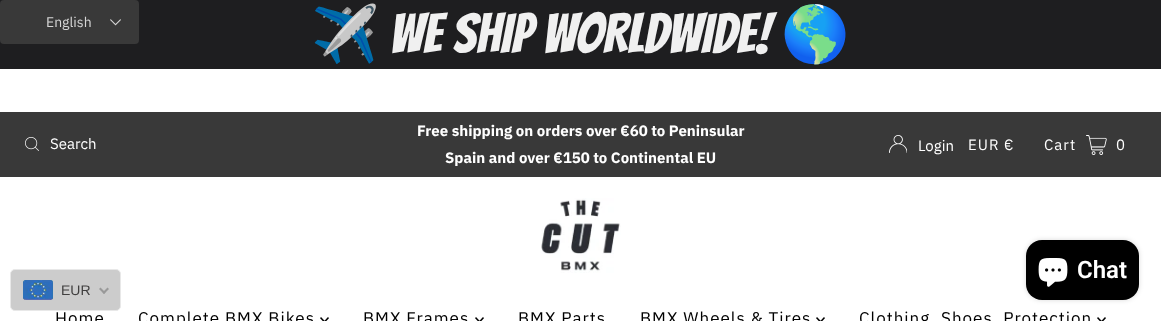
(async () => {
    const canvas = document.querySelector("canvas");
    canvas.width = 1161;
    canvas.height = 321;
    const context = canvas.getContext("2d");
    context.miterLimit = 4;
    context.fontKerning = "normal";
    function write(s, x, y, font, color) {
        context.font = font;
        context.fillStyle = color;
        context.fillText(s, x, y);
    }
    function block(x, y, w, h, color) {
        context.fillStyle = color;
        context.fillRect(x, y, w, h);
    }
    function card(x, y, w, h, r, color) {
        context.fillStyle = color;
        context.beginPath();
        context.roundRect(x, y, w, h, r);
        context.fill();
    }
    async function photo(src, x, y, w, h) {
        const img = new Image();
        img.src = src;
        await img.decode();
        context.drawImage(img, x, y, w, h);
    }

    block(0, 0, 1161, 321, "rgb(255, 255, 255)");
    block(0, 0, 1161, 69, "rgb(30, 30, 32)");
    write("✈️", 311, 53, "55px Noto Color Emoji", "rgb(240, 240, 240)");
    write("WE SHIP WORLDWIDE!", 390, 53, "55px Bangers", "rgb(240, 240, 240)");
    write("🌎", 781, 53, "55px Noto Color Emoji", "rgb(240, 240, 240)");
    block(0, 112, 1161, 65, "rgb(57, 57, 57)");
    await photo("media/1.png", 25, 137, 14, 14);
    write("Search", 50, 149, "15px IBM Plex Sans", "rgb(255, 255, 255)");
    write("Free shipping on orders over €60 to Peninsular", 417, 136, "bold 15px IBM Plex Sans", "rgb(255, 255, 255)");
    write("Spain and over €150 to Continental EU", 445, 163, "bold 15px IBM Plex Sans", "rgb(255, 255, 255)");
    await photo("media/2.png", 889, 135, 18, 18);
    write("Login", 918, 151, "15px IBM Plex Sans", "rgb(255, 255, 255)");
    context.letterSpacing = "1px";
    write("EUR €", 968, 150, "15px IBM Plex Sans", "rgb(255, 255, 255)");
    write("Cart", 1044, 150, "15px IBM Plex Sans", "rgb(255, 255, 255)");
    await photo("media/3.png", 1086, 135, 21, 20);
    write("0", 1116, 150, "15px IBM Plex Sans", "rgb(255, 255, 255)");
    await photo("media/4.png", 541, 198, 80, 75);
    write("Home", 55, 324, "17px IBM Plex Sans", "rgb(0, 0, 0)");
    write("Complete BMX Bikes", 138, 324, "17px IBM Plex Sans", "rgb(0, 0, 0)");
    await photo("media/5.png", 320, 317, 9, 4);
    write("BMX Frames", 363, 324, "17px IBM Plex Sans", "rgb(0, 0, 0)");
    await photo("media/5.png", 475, 317, 9, 4);
    write("BMX Parts", 518, 324, "17px IBM Plex Sans", "rgb(0, 0, 0)");
    write("BMX Wheels & Tires", 640, 324, "17px IBM Plex Sans", "rgb(0, 0, 0)");
    await photo("media/5.png", 816, 317, 9, 4);
    write("Clothing, Shoes, Protection", 859, 324, "17px IBM Plex Sans", "rgb(0, 0, 0)");
    await photo("media/5.png", 1097, 317, 9, 4);
    card(0, 0, 139, 44, 4, "rgb(57, 57, 57)");
    context.letterSpacing = "0px";
    write("English", 46, 27, "14px IBM Plex Sans", "rgb(215, 215, 215)");
    await photo("media/6.png", 110, 19, 11, 7);
    context.fillStyle = "rgba(0, 0, 0, 0.15)";
    context.filter = "blur(2.5px)";
    context.beginPath();
    context.roundRect(1026, 240, 113, 60, 16);
    context.fill();
    context.filter = "none";
    card(1026, 240, 113, 60, 16, "rgb(0, 0, 0)");
    await photo("media/7.png", 1038, 258, 30, 29);
    write("Chat", 1077, 278, "600 24px Roboto", "rgb(255, 255, 255)");
    context.fillStyle = "rgb(204, 204, 204)";
    context.beginPath();
    context.roundRect(10.5, 269.5, 110, 41, 4.5);
    context.fill();
    context.strokeStyle = "rgb(232, 232, 232)";
    context.stroke();
    await photo("media/8.png", 23, 280, 30, 20);
    write("EUR", 61, 295, "14px Liberation Sans", "rgb(64, 63, 63)");
    context.fillStyle = "rgb(153, 153, 153)";
    context.beginPath();
    context.moveTo(107.5, 287.5);
    context.lineTo(109, 289);
    context.lineTo(104, 294);
    context.lineTo(102.5, 292.5);
    context.closePath();
    context.fill();
    context.beginPath();
    context.moveTo(100.5, 287.5);
    context.lineTo(105.5, 292.5);
    context.lineTo(104, 294);
    context.lineTo(99, 289);
    context.closePath();
    context.fill();
})();
